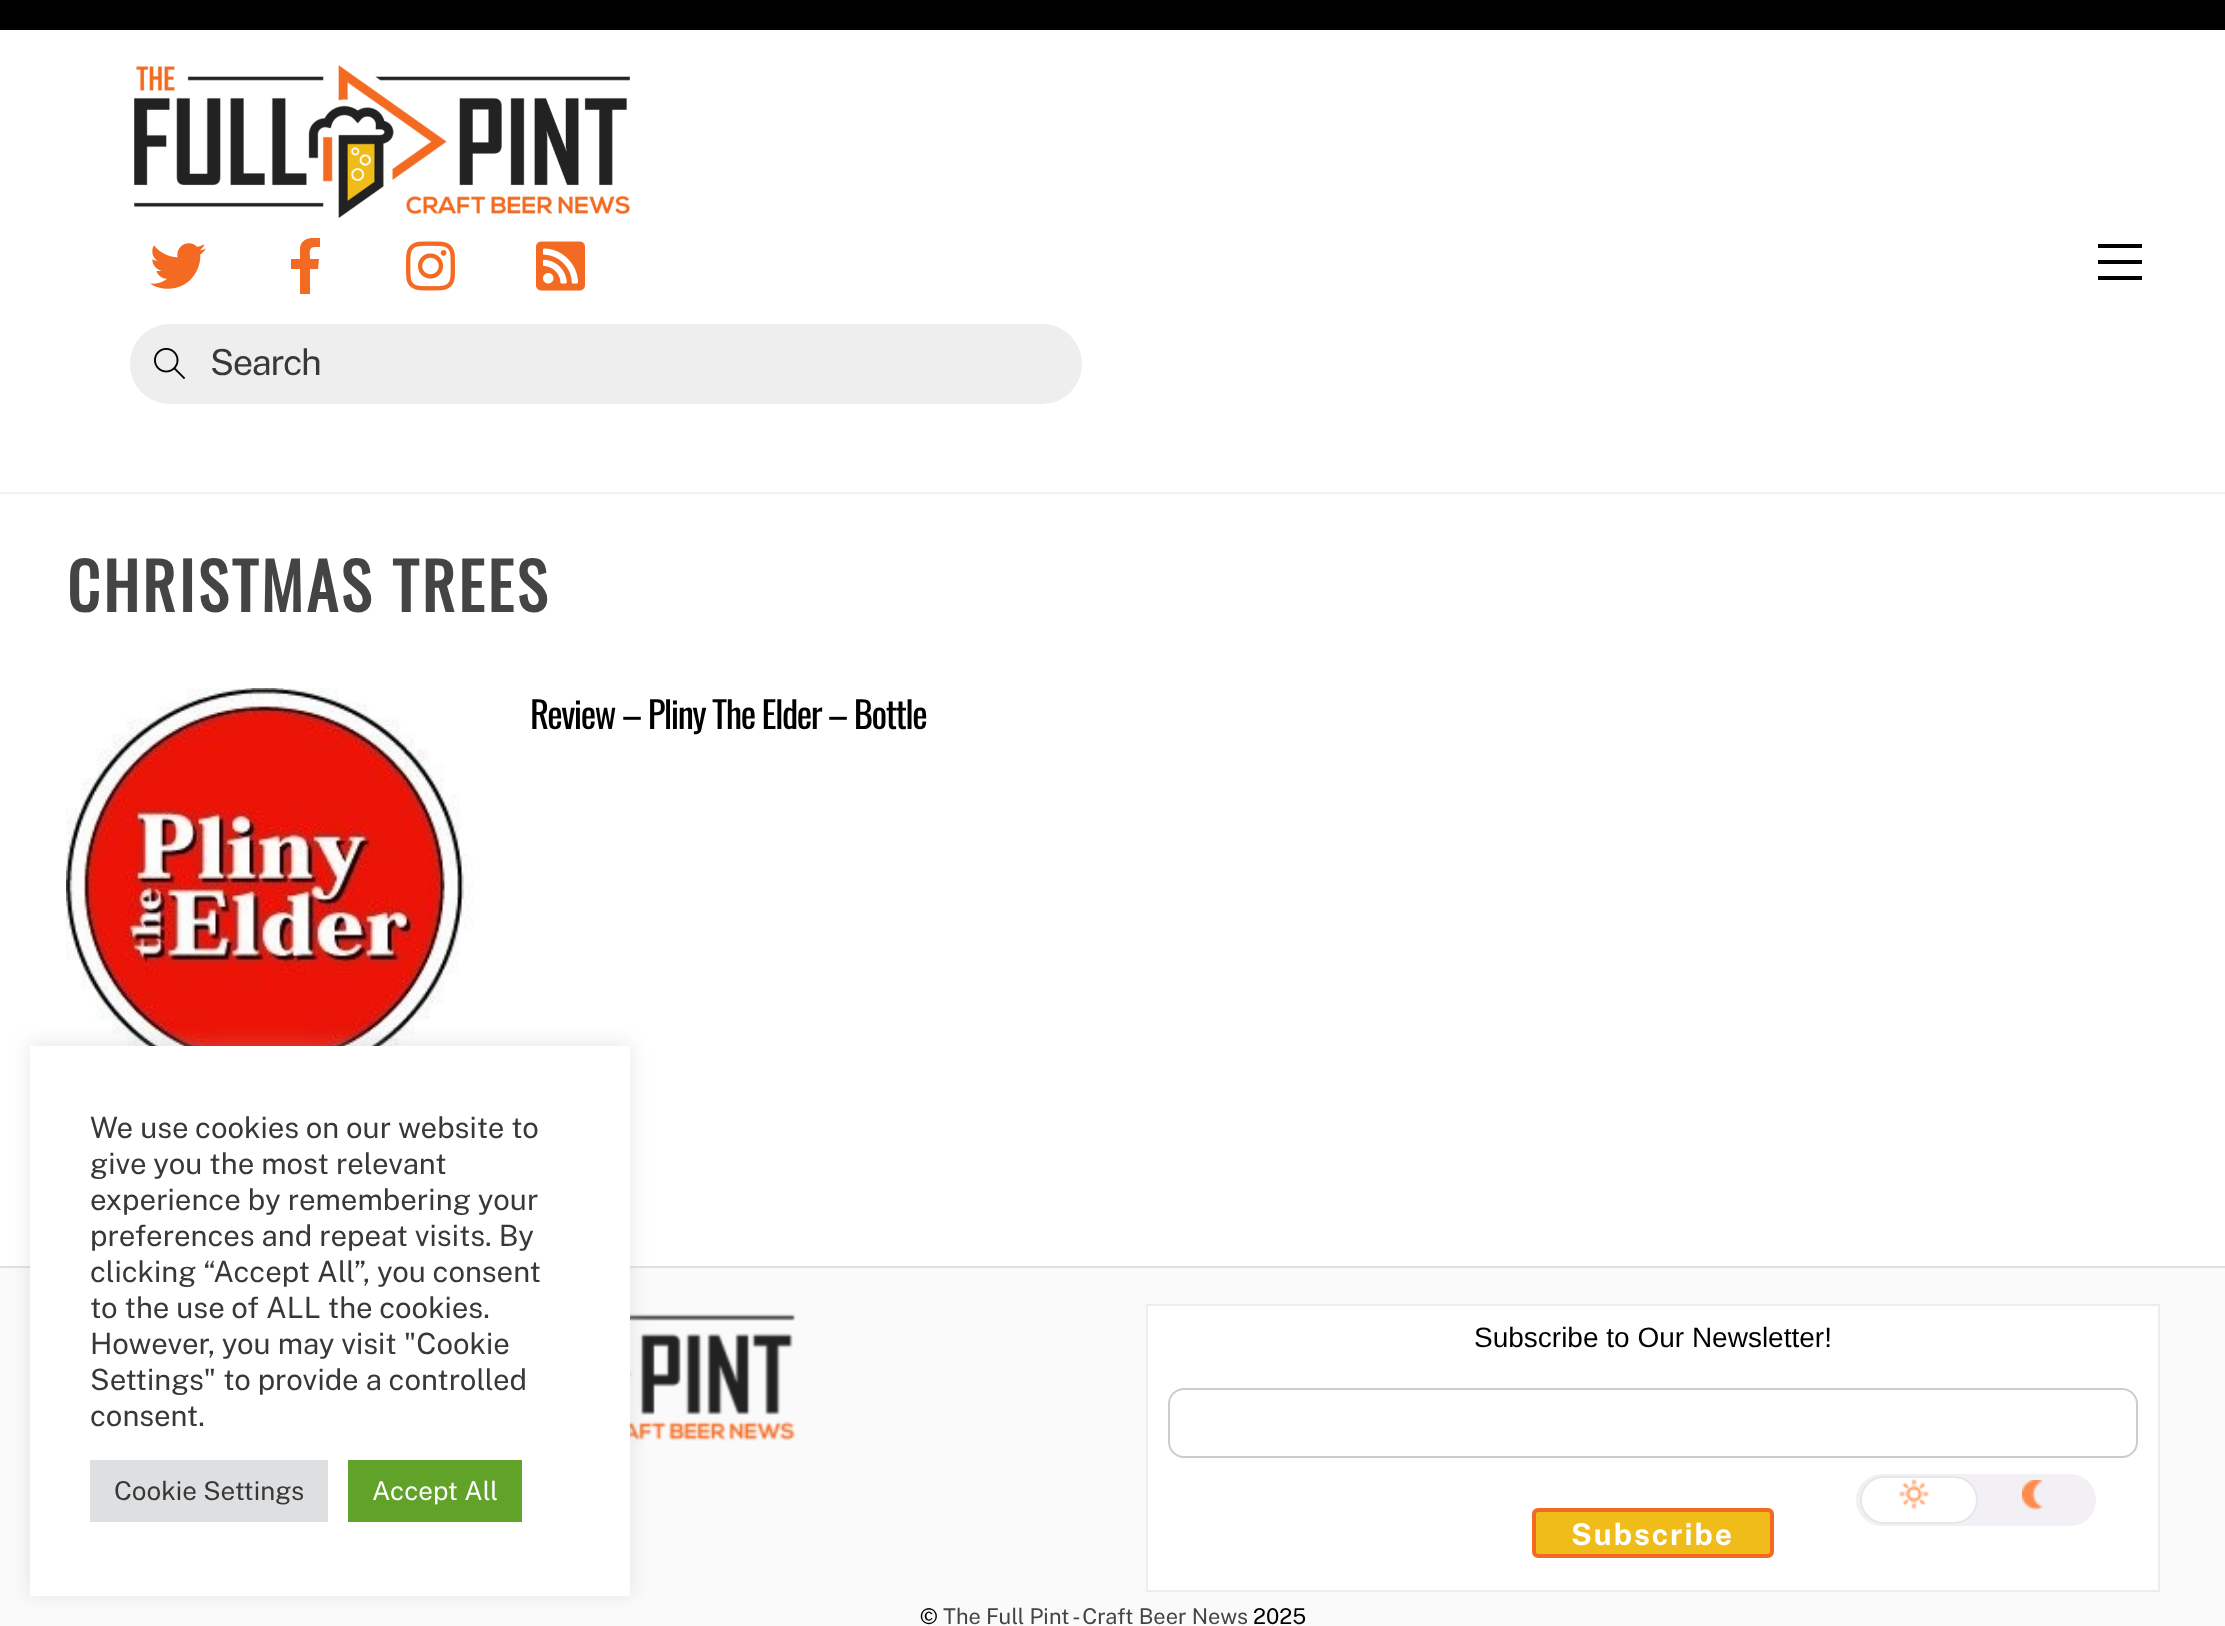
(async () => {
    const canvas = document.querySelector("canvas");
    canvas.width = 2225;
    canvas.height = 1626;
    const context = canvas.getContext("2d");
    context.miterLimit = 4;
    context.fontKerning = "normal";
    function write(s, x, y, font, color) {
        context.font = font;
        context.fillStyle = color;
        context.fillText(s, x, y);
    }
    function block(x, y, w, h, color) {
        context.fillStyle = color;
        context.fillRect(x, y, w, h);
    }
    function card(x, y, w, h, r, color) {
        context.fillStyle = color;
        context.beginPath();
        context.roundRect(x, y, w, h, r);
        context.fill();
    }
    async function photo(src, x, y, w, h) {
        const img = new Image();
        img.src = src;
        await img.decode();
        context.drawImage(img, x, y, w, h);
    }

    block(0, 0, 2225, 1626, "rgb(255, 255, 255)");
    block(0, 0, 2225, 30, "rgb(0, 0, 0)");
    block(0, 492, 2225, 2, "rgb(242, 242, 242)");
    block(2098, 276, 44, 4, "rgb(0, 0, 0)");
    block(2098, 244, 44, 4, "rgb(0, 0, 0)");
    block(2098, 260, 44, 4, "rgb(0, 0, 0)");
    await photo("media/1.png", 134, 65, 496, 153);
    await photo("media/2.png", 150, 243, 56, 46);
    context.save();
    context.beginPath();
    context.rect(278, 238, 56, 56);
    context.clip();
    context.fillStyle = "rgb(243, 106, 34)";
    context.beginPath();
    context.moveTo(315, 247);
    context.bezierCurveTo(308, 247, 310, 254, 310, 259);
    context.lineTo(319, 259);
    context.lineTo(318, 269);
    context.lineTo(310, 269);
    context.lineTo(310, 294);
    context.lineTo(300, 294);
    context.lineTo(300, 269);
    context.lineTo(291, 269);
    context.lineTo(291, 259);
    context.lineTo(300, 259);
    context.lineTo(300, 248);
    context.bezierCurveTo(301, 238, 312, 237, 320, 238);
    context.lineTo(320, 247);
    context.closePath();
    context.fill();
    context.restore();
    await photo("media/3.png", 406, 241, 49, 50);
    await photo("media/4.png", 536, 241, 49, 50);
    card(130, 324, 952, 80, 40, "rgb(238, 238, 238)");
    context.beginPath();
    context.arc(170, 364, 40, 0, Math.PI * 2);
    context.fill();
    await photo("media/5.png", 154, 348, 32, 32);
    context.letterSpacing = "-1.25px";
    write("Search", 210, 375, "36px Public Sans", "rgb(56, 56, 56)");
    context.letterSpacing = "3.25px";
    write("CHRISTMAS TREES", 67, 612, "bold 64px Oswald", "rgb(68, 68, 68)");
    await photo("media/6.png", 66, 688, 407, 358);
    context.letterSpacing = "-1.5px";
    write("Review – Pliny The Elder – Bottle", 530, 729, "36.75px Oswald", "rgb(0, 0, 0)");
    block(0, 1268, 2225, 358, "rgb(250, 250, 250)");
    block(0, 1266, 2225, 2, "rgb(225, 225, 225)");
    await photo("media/7.png", 630, 1313, 166, 128);
    context.fillStyle = "rgb(255, 255, 255)";
    context.beginPath();
    context.rect(1147, 1305, 1012, 286);
    context.fill();
    context.strokeStyle = "rgb(237, 237, 237)";
    context.lineWidth = 2;
    context.stroke();
    context.letterSpacing = "0px";
    write("Subscribe to Our Newsletter!", 1474, 1347, "28px Liberation Sans", "rgb(0, 0, 0)");
    context.beginPath();
    context.roundRect(1169, 1389, 968, 68, 15);
    context.strokeStyle = "rgb(204, 204, 204)";
    context.stroke();
    context.fillStyle = "rgb(240, 188, 26)";
    context.beginPath();
    context.roundRect(1534, 1510, 238, 46, 4);
    context.fill();
    context.strokeStyle = "rgb(243, 106, 34)";
    context.lineWidth = 4;
    context.stroke();
    context.letterSpacing = "2px";
    write("Subscribe", 1571, 1545, "bold 30px Public Sans", "rgb(255, 255, 255)");
    context.letterSpacing = "0px";
    write("©", 920, 1624, "21.75px Public Sans", "rgb(0, 0, 0)");
    write("The Full Pint - Craft Beer News", 943, 1624, "21.75px Public Sans", "rgb(68, 68, 68)");
    write("2025", 1253, 1624, "21.75px Public Sans", "rgb(0, 0, 0)");
    context.fillStyle = "rgba(172, 171, 171, 0.3)";
    context.filter = "blur(10px)";
    context.beginPath();
    context.rect(30, 1044, 600, 550);
    context.fill();
    context.filter = "none";
    block(30, 1046, 600, 550, "rgb(255, 255, 255)");
    write("We use cookies on our website to", 90, 1138, "29.3px Public Sans", "rgb(56, 56, 56)");
    write("give you the most relevant", 90, 1174, "29.3px Public Sans", "rgb(56, 56, 56)");
    write("experience by remembering your", 90, 1210, "29.3px Public Sans", "rgb(56, 56, 56)");
    write("preferences and repeat visits. By", 90, 1246, "29.3px Public Sans", "rgb(56, 56, 56)");
    write("clicking “Accept All”, you consent", 90, 1282, "29.3px Public Sans", "rgb(56, 56, 56)");
    write("to the use of ALL the cookies.", 90, 1318, "29.3px Public Sans", "rgb(56, 56, 56)");
    write("However, you may visit \"Cookie", 90, 1354, "29.3px Public Sans", "rgb(56, 56, 56)");
    write("Settings\" to provide a controlled", 90, 1390, "29.3px Public Sans", "rgb(56, 56, 56)");
    write("consent.", 90, 1426, "29.3px Public Sans", "rgb(56, 56, 56)");
    block(90, 1460, 238, 62, "rgb(222, 223, 224)");
    write("Cookie Settings", 114, 1500, "26px Public Sans", "rgb(56, 56, 56)");
    block(348, 1460, 174, 62, "rgb(97, 162, 41)");
    write("Accept All", 372, 1500, "26px Public Sans", "rgb(255, 255, 255)");
    card(1856, 1474, 240, 52, 26, "rgb(242, 240, 244)");
    context.fillStyle = "rgb(255, 255, 255)";
    context.beginPath();
    context.roundRect(1861, 1477, 116, 46, 23);
    context.fill();
    context.strokeStyle = "rgb(231, 231, 231)";
    context.lineWidth = 2;
    context.stroke();
    await photo("media/8.png", 1898, 1478, 32, 32);
    await photo("media/9.png", 2022, 1480, 21, 30);
})();
